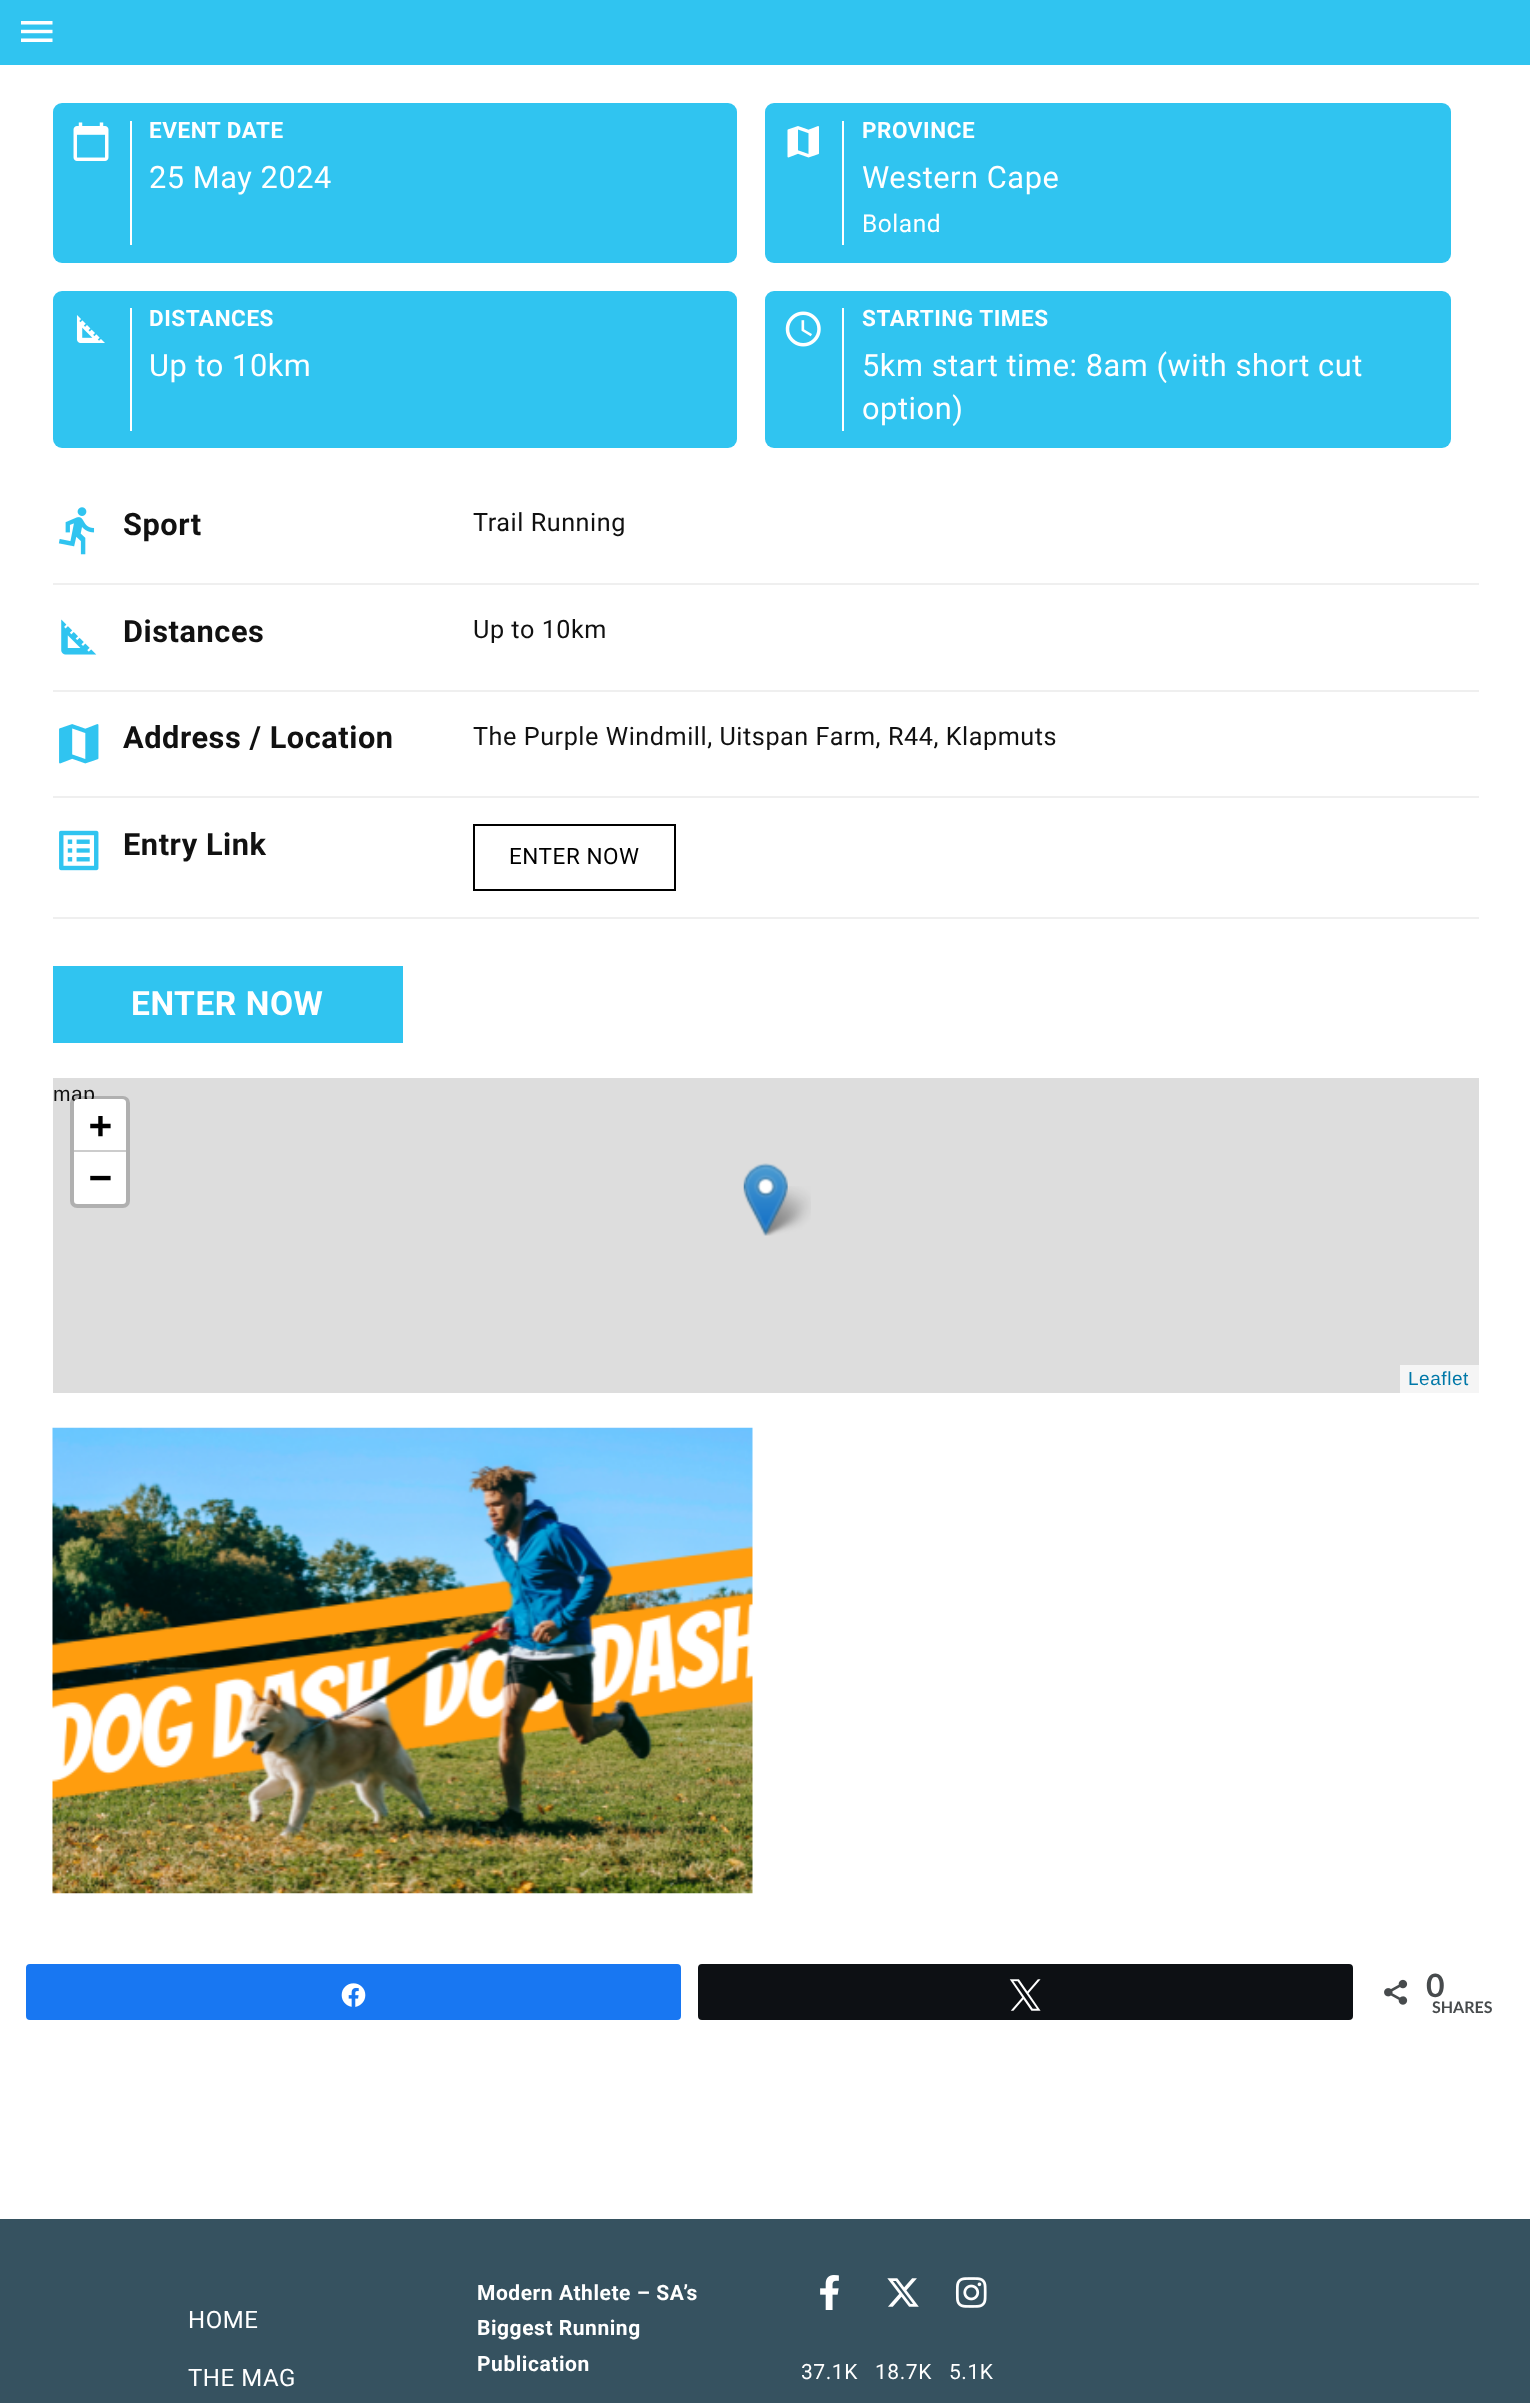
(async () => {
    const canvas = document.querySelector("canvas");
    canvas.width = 1530;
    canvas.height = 2403;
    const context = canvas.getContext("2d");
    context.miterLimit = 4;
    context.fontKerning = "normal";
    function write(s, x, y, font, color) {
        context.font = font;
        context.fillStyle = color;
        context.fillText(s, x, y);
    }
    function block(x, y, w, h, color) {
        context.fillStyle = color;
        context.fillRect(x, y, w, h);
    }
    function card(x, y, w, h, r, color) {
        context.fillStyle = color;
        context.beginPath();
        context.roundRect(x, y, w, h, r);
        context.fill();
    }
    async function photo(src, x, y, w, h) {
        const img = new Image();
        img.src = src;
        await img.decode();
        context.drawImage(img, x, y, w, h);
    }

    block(0, 0, 1530, 2403, "rgb(255, 255, 255)");
    block(0, 0, 1530, 65, "rgb(48, 196, 240)");
    await photo("media/1.png", 21, 21, 32, 21);
    card(53, 103, 684, 160, 9, "rgb(48, 196, 240)");
    block(130, 121, 2, 124, "rgb(255, 255, 255)");
    await photo("media/2.png", 73, 122, 36, 39);
    context.letterSpacing = "0.55px";
    write("EVENT DATE", 149, 138, "bold 22.5px Roboto", "rgb(255, 255, 255)");
    write("25 May 2024", 149, 188, "30.75px Roboto", "rgb(255, 255, 255)");
    card(765, 103, 686, 160, 9, "rgb(48, 196, 240)");
    block(842, 121, 2, 124, "rgb(255, 255, 255)");
    await photo("media/3.png", 787, 126, 32, 32);
    write("PROVINCE", 862, 138, "bold 22.5px Roboto", "rgb(255, 255, 255)");
    write("Western Cape", 862, 188, "30.75px Roboto", "rgb(255, 255, 255)");
    write("Boland", 862, 232, "24.5px Roboto", "rgb(255, 255, 255)");
    card(53, 291, 684, 157, 9, "rgb(48, 196, 240)");
    block(130, 308, 2, 123, "rgb(255, 255, 255)");
    await photo("media/4.png", 76, 315, 29, 28);
    write("DISTANCES", 149, 326, "bold 22.5px Roboto", "rgb(255, 255, 255)");
    write("Up to 10km", 149, 376, "30.75px Roboto", "rgb(255, 255, 255)");
    card(765, 291, 686, 157, 9, "rgb(48, 196, 240)");
    block(842, 308, 2, 123, "rgb(255, 255, 255)");
    await photo("media/5.png", 785, 311, 36, 36);
    write("STARTING TIMES", 862, 326, "bold 22.5px Roboto", "rgb(255, 255, 255)");
    write("5km start time: 8am (with short cut", 862, 376, "30.75px Roboto", "rgb(255, 255, 255)");
    write("option)", 862, 419, "30.75px Roboto", "rgb(255, 255, 255)");
    block(53, 583, 1426, 2, "rgb(239, 239, 239)");
    await photo("media/6.png", 58, 507, 37, 48);
    write("Sport", 123, 535, "bold 30.75px Roboto", "rgb(17, 17, 17)");
    write("Trail Running", 473, 531, "25.2px Roboto", "rgb(17, 17, 17)");
    block(53, 690, 1426, 2, "rgb(239, 239, 239)");
    await photo("media/7.png", 61, 619, 36, 36);
    write("Distances", 123, 642, "bold 30.75px Roboto", "rgb(17, 17, 17)");
    write("Up to 10km", 473, 638, "25.2px Roboto", "rgb(17, 17, 17)");
    block(53, 796, 1426, 2, "rgb(239, 239, 239)");
    await photo("media/8.png", 59, 724, 40, 40);
    write("Address / Location", 123, 748, "bold 30.75px Roboto", "rgb(17, 17, 17)");
    write("The Purple Windmill, Uitspan Farm, R44, Klapmuts", 473, 745, "25.2px Roboto", "rgb(17, 17, 17)");
    block(53, 917, 1426, 2, "rgb(239, 239, 239)");
    await photo("media/9.png", 59, 830, 40, 41);
    write("Entry Link", 123, 855, "bold 30.75px Roboto", "rgb(17, 17, 17)");
    context.strokeStyle = "rgb(0, 0, 0)";
    context.lineWidth = 2;
    context.strokeRect(474, 825, 201, 65);
    write("ENTER NOW", 509, 864, "22.5px Roboto", "rgb(0, 0, 0)");
    block(53, 966, 350, 77, "rgb(48, 196, 240)");
    write("ENTER NOW", 131, 1015, "bold 33.5px Roboto", "rgb(255, 255, 255)");
    block(53, 1078, 1426, 315, "rgb(221, 221, 221)");
    write("map", 53, 1101, "21px Liberation Sans", "rgb(17, 17, 17)");
    context.beginPath();
    context.roundRect(72, 1098, 56, 108, 5);
    context.strokeStyle = "rgba(0, 0, 0, 0.2)";
    context.lineWidth = 4;
    context.stroke();
    context.fillStyle = "rgb(255, 255, 255)";
    context.beginPath();
    context.roundRect(74, 1099, 52, 53, [4, 4, 0, 0]);
    context.fill();
    block(74, 1150, 52, 2, "rgb(204, 204, 204)");
    write("+", 89, 1138, "bold 38px DejaVu Sans Mono", "rgb(0, 0, 0)");
    context.fillStyle = "rgb(255, 255, 255)";
    context.beginPath();
    context.roundRect(74, 1152, 52, 52, [0, 0, 4, 4]);
    context.fill();
    write("−", 89, 1190, "bold 38px DejaVu Sans Mono", "rgb(0, 0, 0)");
    block(1400, 1365, 79, 28, "rgb(245, 245, 245)");
    write("Leaflet", 1408, 1385, "19px Liberation Sans", "rgb(0, 120, 168)");
    await photo("media/11.png", 759, 1186, 52, 50);
    await photo("media/10.png", 743, 1163, 45, 73);
    await photo("media/12.png", 52, 1427, 701, 467);
    context.fillStyle = "rgb(24, 119, 242)";
    context.beginPath();
    context.roundRect(27, 1965, 653, 54, 3);
    context.fill();
    context.strokeStyle = "rgb(24, 119, 242)";
    context.lineWidth = 2;
    context.stroke();
    await photo("media/13.png", 341, 1983, 25, 24);
    context.fillStyle = "rgb(13, 16, 20)";
    context.beginPath();
    context.roundRect(699, 1965, 653, 54, 3);
    context.fill();
    context.strokeStyle = "rgb(13, 16, 20)";
    context.stroke();
    await photo("media/14.png", 1009, 1979, 32, 32);
    await photo("media/15.png", 1384, 1979, 24, 26);
    write("0", 1426, 1997, "bold 32px Lato", "rgb(71, 75, 77)");
    context.letterSpacing = "0px";
    write("SHARES", 1432, 2013, "bold 16px Lato", "rgb(71, 75, 77)");
    block(0, 2219, 1530, 184, "rgb(54, 82, 96)");
    context.letterSpacing = "0.55px";
    write("HOME", 188, 2328, "24px Roboto", "rgb(255, 255, 255)");
    write("THE MAG", 188, 2386, "24px Roboto", "rgb(255, 255, 255)");
    write("Modern Athlete – SA’s", 477, 2300, "bold 21px Roboto", "rgb(255, 255, 255)");
    write("Biggest Running", 477, 2335, "bold 21px Roboto", "rgb(255, 255, 255)");
    write("Publication", 477, 2371, "bold 21px Roboto", "rgb(255, 255, 255)");
    await photo("media/16.png", 820, 2275, 19, 35);
    write("37.1K", 801, 2379, "21px Roboto", "rgb(255, 255, 255)");
    await photo("media/17.png", 887, 2278, 32, 29);
    write("18.7K", 875, 2379, "21px Roboto", "rgb(255, 255, 255)");
    await photo("media/18.png", 955, 2277, 32, 31);
    write("5.1K", 949, 2379, "21px Roboto", "rgb(255, 255, 255)");
})();
